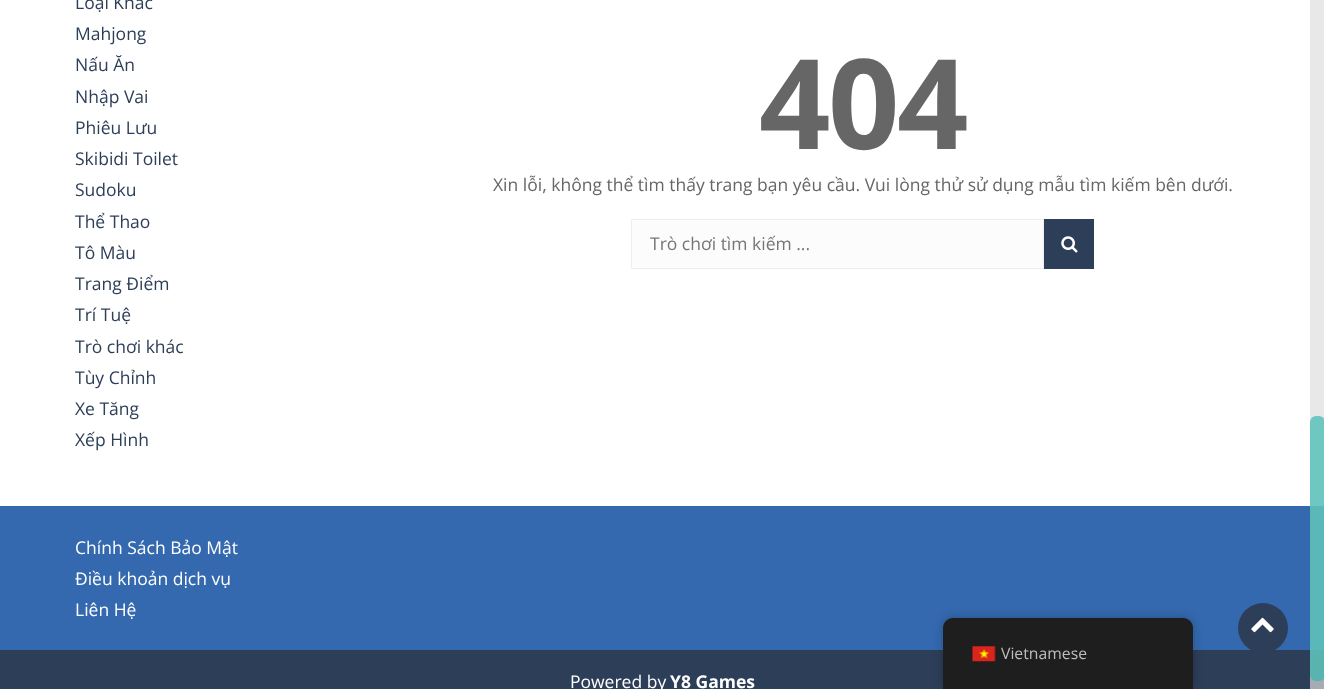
(async () => {
    const canvas = document.querySelector("canvas");
    canvas.width = 1324;
    canvas.height = 689;
    const context = canvas.getContext("2d");
    context.miterLimit = 4;
    context.fontKerning = "normal";
    function write(s, x, y, font, color) {
        context.font = font;
        context.fillStyle = color;
        context.fillText(s, x, y);
    }
    function block(x, y, w, h, color) {
        context.fillStyle = color;
        context.fillRect(x, y, w, h);
    }
    function card(x, y, w, h, r, color) {
        context.fillStyle = color;
        context.beginPath();
        context.roundRect(x, y, w, h, r);
        context.fill();
    }
    async function photo(src, x, y, w, h) {
        const img = new Image();
        img.src = src;
        await img.decode();
        context.drawImage(img, x, y, w, h);
    }

    block(0, 0, 1324, 689, "rgb(255, 255, 255)");
    block(1310, 0, 14, 506, "rgb(232, 232, 232)");
    write("Loại Khác", 75, 9, "17.5px Open Sans", "rgb(45, 62, 88)");
    write("Mahjong", 75, 40, "17.5px Open Sans", "rgb(45, 62, 88)");
    write("Nấu Ăn", 75, 71, "17.5px Open Sans", "rgb(45, 62, 88)");
    write("Nhập Vai", 75, 103, "17.5px Open Sans", "rgb(45, 62, 88)");
    write("Phiêu Lưu", 75, 134, "17.5px Open Sans", "rgb(45, 62, 88)");
    write("Skibidi Toilet", 75, 165, "17.5px Open Sans", "rgb(45, 62, 88)");
    write("Sudoku", 75, 196, "17.5px Open Sans", "rgb(45, 62, 88)");
    write("Thể Thao", 75, 228, "17.5px Open Sans", "rgb(45, 62, 88)");
    write("Tô Màu", 75, 259, "17.5px Open Sans", "rgb(45, 62, 88)");
    write("Trang Điểm", 75, 290, "17.5px Open Sans", "rgb(45, 62, 88)");
    write("Trí Tuệ", 75, 321, "17.5px Open Sans", "rgb(45, 62, 88)");
    write("Trò chơi khác", 75, 353, "17.5px Open Sans", "rgb(45, 62, 88)");
    write("Tùy Chỉnh", 75, 384, "17.5px Open Sans", "rgb(45, 62, 88)");
    write("Xe Tăng", 75, 415, "17.5px Open Sans", "rgb(45, 62, 88)");
    write("Xếp Hình", 75, 446, "17.5px Open Sans", "rgb(45, 62, 88)");
    context.letterSpacing = "-2.5px";
    write("404", 759, 149, "bold 125px Open Sans", "rgb(102, 102, 102)");
    context.letterSpacing = "0px";
    write("Xin lỗi, không thể tìm thấy trang bạn yêu cầu. Vui lòng thử sử dụng mẫu tìm kiếm bên dưới.", 493, 191, "17.5px Open Sans", "rgb(102, 102, 102)");
    context.fillStyle = "rgb(252, 252, 252)";
    context.beginPath();
    context.rect(631.5, 219.5, 412, 49);
    context.fill();
    context.strokeStyle = "rgb(238, 238, 238)";
    context.stroke();
    write("Trò chơi tìm kiếm ...", 650, 250, "17.5px Open Sans", "rgb(117, 117, 117)");
    block(1044, 219, 50, 50, "rgb(45, 62, 88)");
    await photo("media/1.png", 1061, 236, 17, 17);
    block(0, 506, 1310, 144, "rgb(52, 105, 175)");
    block(1310, 506, 14, 144, "rgb(169, 185, 207)");
    write("Chính Sách Bảo Mật", 75, 554, "17.5px Open Sans", "rgb(255, 255, 255)");
    write("Điều khoản dịch vụ", 75, 585, "17.5px Open Sans", "rgb(255, 255, 255)");
    write("Liên Hệ", 75, 616, "17.5px Open Sans", "rgb(255, 255, 255)");
    block(0, 650, 1310, 39, "rgb(45, 62, 88)");
    block(1310, 650, 14, 39, "rgb(166, 172, 180)");
    write("Powered by", 570, 688, "17.5px Open Sans", "rgb(255, 255, 255)");
    write("Y8 Games", 670, 688, "bold 17.5px Open Sans", "rgb(255, 255, 255)");
    context.fillStyle = "rgb(45, 62, 88)";
    context.beginPath();
    context.arc(1263, 628, 25, 0, Math.PI * 2);
    context.fill();
    await photo("media/2.png", 1251, 617, 23, 16);
    card(1310, 416, 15, 265, 6, "rgba(55, 184, 174, 0.69)");
    context.fillStyle = "rgba(0, 0, 0, 0.25)";
    context.filter = "blur(5px)";
    context.beginPath();
    context.roundRect(943, 618, 250, 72, 10);
    context.fill();
    context.filter = "none";
    context.fillStyle = "rgb(30, 30, 30)";
    context.beginPath();
    context.moveTo(953, 618);
    context.lineTo(1183, 618);
    context.bezierCurveTo(1188.5, 618, 1193, 622.5, 1193, 628);
    context.lineTo(1193, 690);
    context.lineTo(943, 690);
    context.lineTo(943, 628);
    context.bezierCurveTo(943, 622.5, 947.5, 618, 953, 618);
    context.closePath();
    context.fill();
    await photo("media/3.png", 972, 646, 24, 16);
    write("Vietnamese", 1001, 659, "15.75px Open Sans", "rgb(189, 189, 189)");
})();
